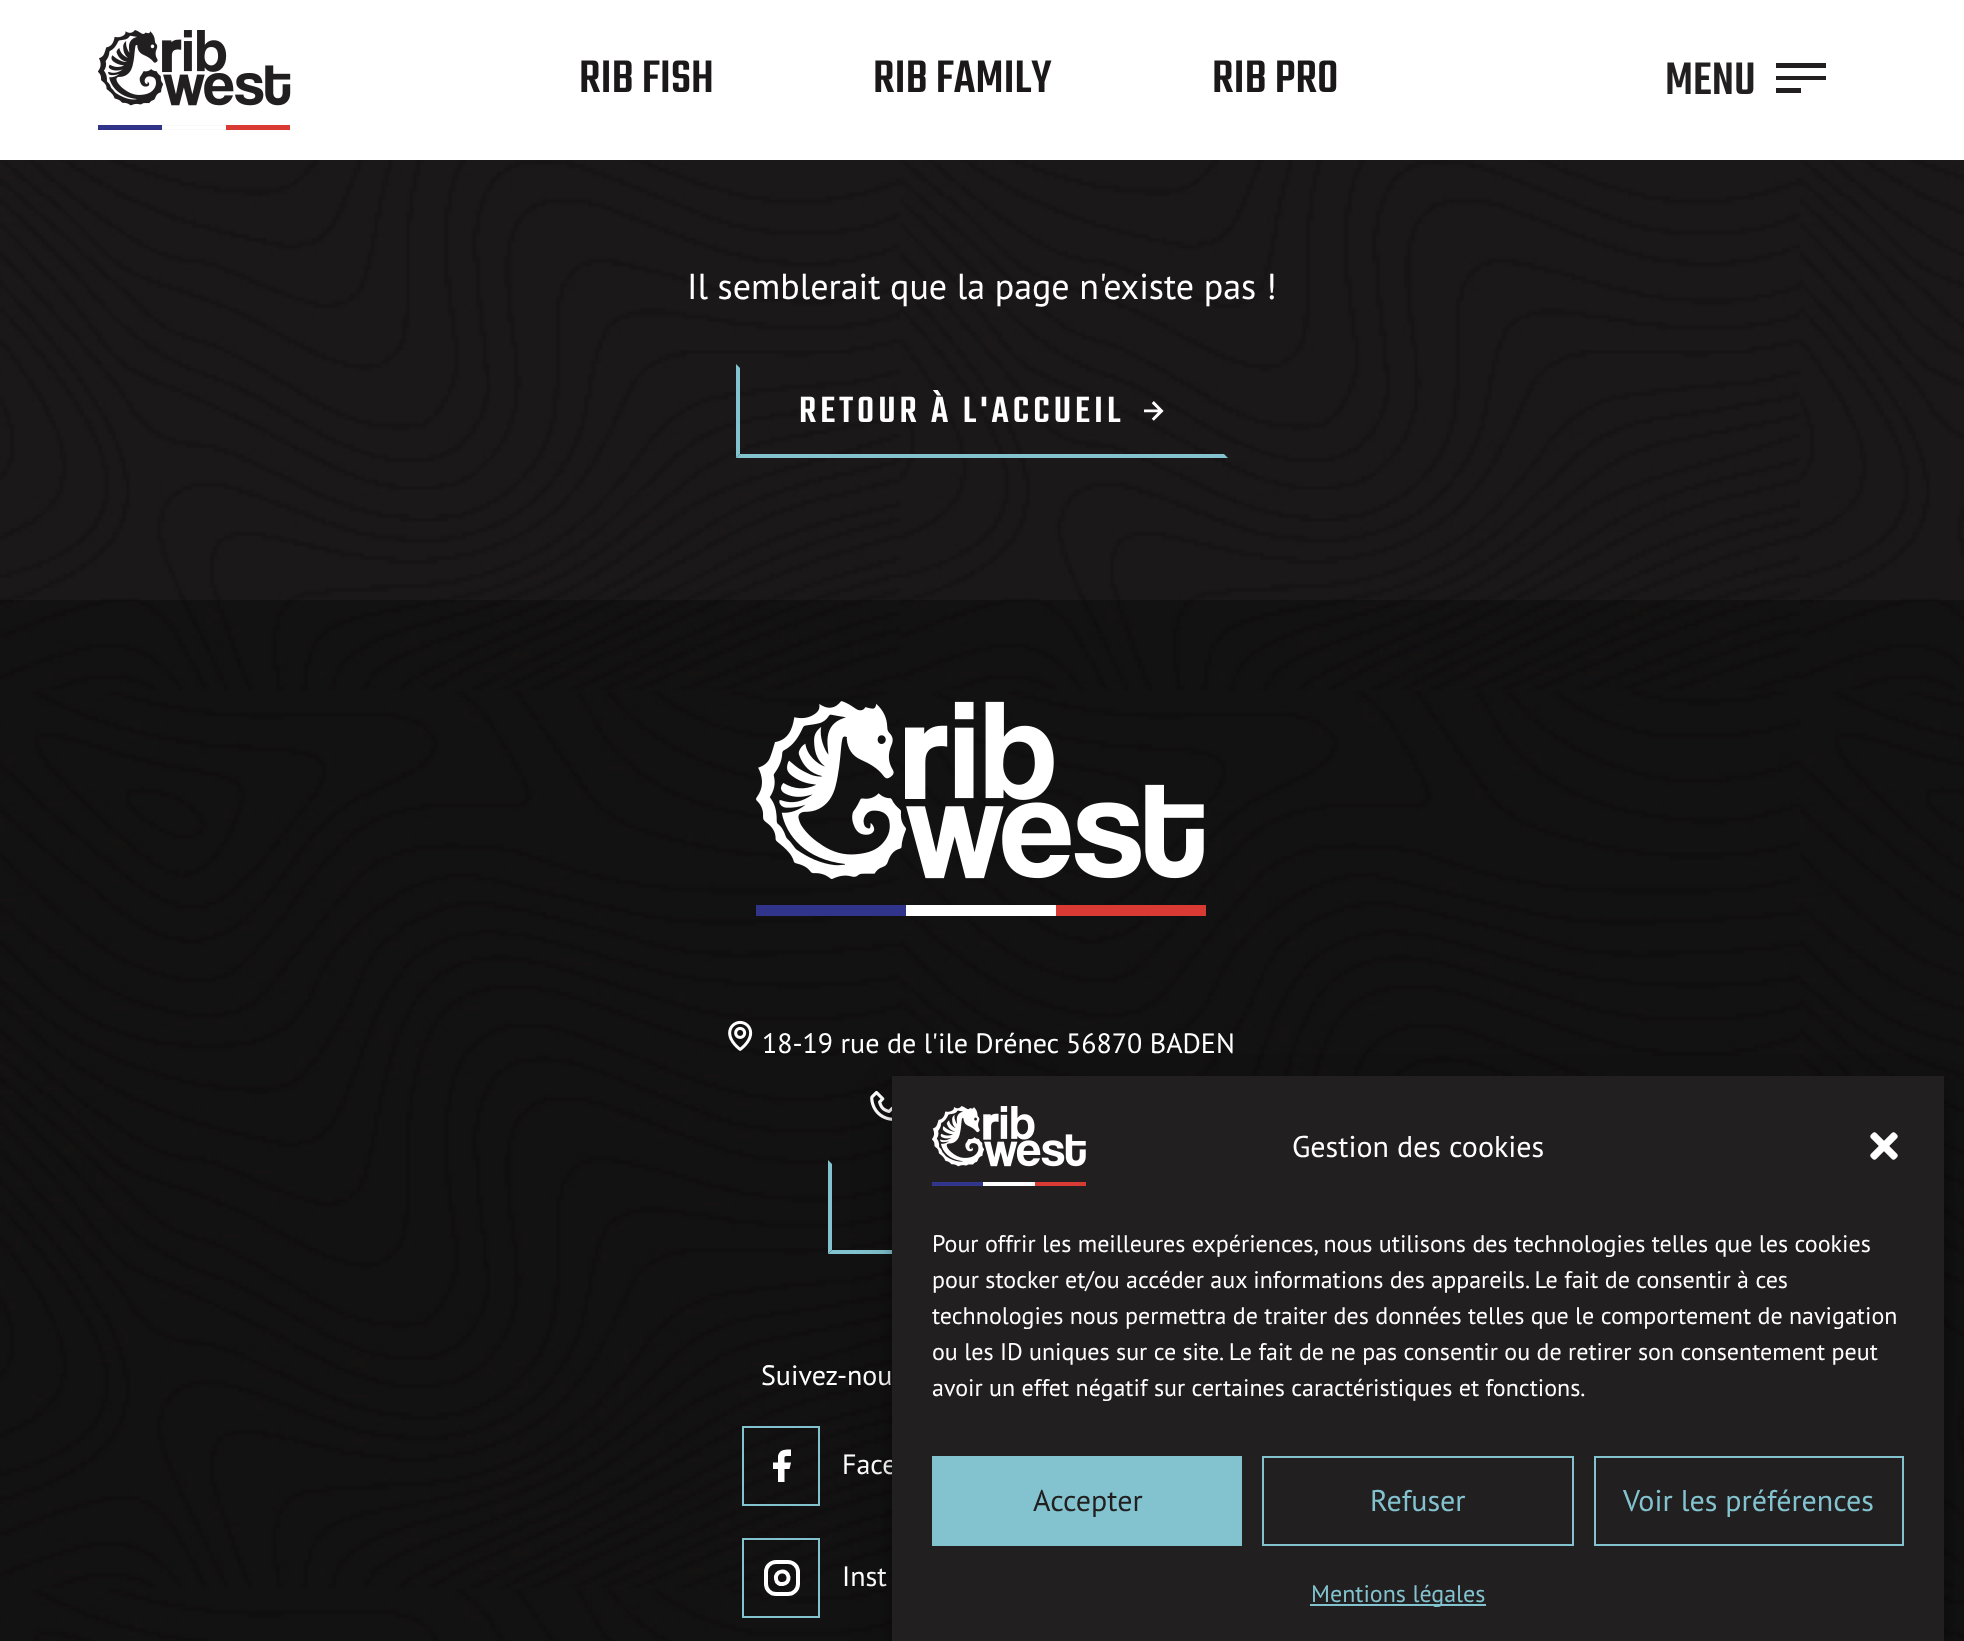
(async () => {
    const canvas = document.querySelector("canvas");
    canvas.width = 1964;
    canvas.height = 1641;
    const context = canvas.getContext("2d");
    context.miterLimit = 4;
    context.fontKerning = "normal";
    function write(s, x, y, font, color) {
        context.font = font;
        context.fillStyle = color;
        context.fillText(s, x, y);
    }
    function block(x, y, w, h, color) {
        context.fillStyle = color;
        context.fillRect(x, y, w, h);
    }
    async function photo(src, x, y, w, h) {
        const img = new Image();
        img.src = src;
        await img.decode();
        context.drawImage(img, x, y, w, h);
    }

    block(0, 0, 1964, 1641, "rgb(255, 255, 255)");
    await photo("media/1.png", 0, 160, 1964, 1481);
    await photo("media/2.png", 98, 30, 193, 100);
    write("RIB FISH", 579, 92, "500 50px Teko", "rgb(27, 24, 25)");
    write("RIB FAMILY", 873, 92, "500 50px Teko", "rgb(27, 24, 25)");
    write("RIB PRO", 1212, 92, "500 50px Teko", "rgb(27, 24, 25)");
    write("MENU", 1665, 94, "500 50px Teko", "rgb(34, 31, 32)");
    context.beginPath();
    context.moveTo(1776, 63);
    context.lineTo(1826, 63);
    context.lineTo(1826, 68);
    context.lineTo(1776, 68);
    context.closePath();
    context.moveTo(1776, 76);
    context.lineTo(1826, 76);
    context.lineTo(1826, 80);
    context.lineTo(1776, 80);
    context.closePath();
    context.moveTo(1776, 88);
    context.lineTo(1801, 88);
    context.lineTo(1801, 93);
    context.lineTo(1776, 93);
    context.closePath();
    context.fill();
    write("Il semblerait que la page n'existe pas !", 687, 299, "36px PT Sans", "rgb(255, 255, 255)");
    context.fillStyle = "rgb(130, 195, 207)";
    context.beginPath();
    context.moveTo(1228, 458);
    context.lineTo(736, 458);
    context.lineTo(740, 454);
    context.lineTo(1224, 454);
    context.closePath();
    context.fill();
    context.beginPath();
    context.moveTo(736, 458);
    context.lineTo(736, 364);
    context.lineTo(740, 368);
    context.lineTo(740, 454);
    context.closePath();
    context.fill();
    context.letterSpacing = "4px";
    write("RETOUR À L'ACCUEIL", 799, 422, "500 40px Teko", "rgb(255, 255, 255)");
    await photo("media/3.png", 1144, 401, 20, 20);
    block(0, 600, 1964, 1041, "rgba(0, 0, 0, 0.25)");
    await photo("media/4.png", 756, 701, 450, 215);
    await photo("media/5.png", 728, 1020, 25, 31);
    context.letterSpacing = "0px";
    write("18-19 rue de l'ile Drénec 56870 BADEN", 762, 1053, "28px PT Sans", "rgb(255, 255, 255)");
    await photo("media/6.png", 870, 1090, 22, 31);
    context.fillStyle = "rgb(130, 195, 207)";
    context.beginPath();
    context.moveTo(1136, 1254);
    context.lineTo(828, 1254);
    context.lineTo(832, 1250);
    context.lineTo(1132, 1250);
    context.closePath();
    context.fill();
    context.beginPath();
    context.moveTo(828, 1254);
    context.lineTo(828, 1160);
    context.lineTo(832, 1164);
    context.lineTo(832, 1250);
    context.closePath();
    context.fill();
    write("Suivez-nou", 761, 1385, "28px PT Sans", "rgb(255, 255, 255)");
    context.strokeStyle = "rgb(130, 195, 207)";
    context.lineWidth = 2;
    context.strokeRect(743, 1427, 76, 78);
    context.beginPath();
    context.moveTo(791, 1449.5);
    context.bezierCurveTo(785.5, 1449.5, 779.5, 1449, 778, 1456);
    context.lineTo(778, 1462.5);
    context.lineTo(773, 1462.5);
    context.lineTo(773, 1469);
    context.lineTo(778, 1469);
    context.lineTo(778, 1482);
    context.lineTo(784.5, 1482);
    context.lineTo(784.5, 1469);
    context.lineTo(789.5, 1469);
    context.lineTo(791, 1462.5);
    context.lineTo(784.5, 1462.5);
    context.bezierCurveTo(784.5, 1455, 783.5, 1456, 791, 1456);
    context.closePath();
    context.fill();
    write("Face", 842, 1474, "28px PT Sans", "rgb(255, 255, 255)");
    context.strokeRect(743, 1539, 76, 78);
    context.beginPath();
    context.moveTo(766, 1572);
    context.bezierCurveTo(766, 1566.5, 770.5, 1562, 776, 1562);
    context.lineTo(788, 1562);
    context.bezierCurveTo(793.5, 1562, 798, 1566.5, 798, 1572);
    context.lineTo(798, 1584);
    context.bezierCurveTo(798, 1589.5, 793.5, 1594, 788, 1594);
    context.lineTo(776, 1594);
    context.bezierCurveTo(770.5, 1594, 766, 1589.5, 766, 1584);
    context.closePath();
    context.moveTo(788.5, 1577);
    context.bezierCurveTo(789.5, 1585, 777, 1587, 776, 1579);
    context.bezierCurveTo(774.5, 1570.5, 787, 1568.5, 788.5, 1577);
    context.closePath();
    context.strokeStyle = "rgb(255, 255, 255)";
    context.lineWidth = 4;
    context.lineCap = "round";
    context.lineJoin = "round";
    context.stroke();
    write("Inst", 842, 1586, "28px PT Sans", "rgb(255, 255, 255)");
    context.fillStyle = "rgba(0, 0, 0, 0.23)";
    context.filter = "blur(6px)";
    context.beginPath();
    context.rect(892, 1088, 1052, 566);
    context.fill();
    context.filter = "none";
    context.fillStyle = "rgba(0, 0, 0, 0.19)";
    context.filter = "blur(20px)";
    context.beginPath();
    context.rect(892, 1096, 1052, 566);
    context.fill();
    context.filter = "none";
    block(892, 1076, 1052, 565, "rgb(34, 31, 32)");
    await photo("media/7.png", 932, 1106, 154, 80);
    write("Gestion des cookies", 1292, 1157, "30px PT Sans", "rgb(255, 255, 255)");
    await photo("media/8.png", 1870, 1132, 28, 28);
    write("Pour offrir les meilleures expériences, nous utilisons des technologies telles que les cookies", 932, 1252, "24px PT Sans", "rgb(255, 255, 255)");
    write("pour stocker et/ou accéder aux informations des appareils. Le fait de consentir à ces", 932, 1288, "24px PT Sans", "rgb(255, 255, 255)");
    write("technologies nous permettra de traiter des données telles que le comportement de navigation", 932, 1324, "24px PT Sans", "rgb(255, 255, 255)");
    write("ou les ID uniques sur ce site. Le fait de ne pas consentir ou de retirer son consentement peut", 932, 1360, "24px PT Sans", "rgb(255, 255, 255)");
    write("avoir un effet négatif sur certaines caractéristiques et fonctions.", 932, 1396, "24px PT Sans", "rgb(255, 255, 255)");
    block(932, 1456, 310, 90, "rgb(130, 195, 207)");
    write("Accepter", 1033, 1511, "30px PT Sans", "rgb(34, 31, 32)");
    context.strokeStyle = "rgb(130, 195, 207)";
    context.lineWidth = 2;
    context.lineJoin = "miter";
    context.strokeRect(1263, 1457, 310, 88);
    write("Refuser", 1370, 1511, "30px PT Sans", "rgb(130, 195, 207)");
    context.strokeRect(1595, 1457, 308, 88);
    write("Voir les préférences", 1623, 1511, "30px PT Sans", "rgb(130, 195, 207)");
    block(1310, 1604, 176, 2, "rgb(130, 195, 207)");
    write("Mentions légales", 1311, 1602, "24px PT Sans", "rgb(130, 195, 207)");
})();
